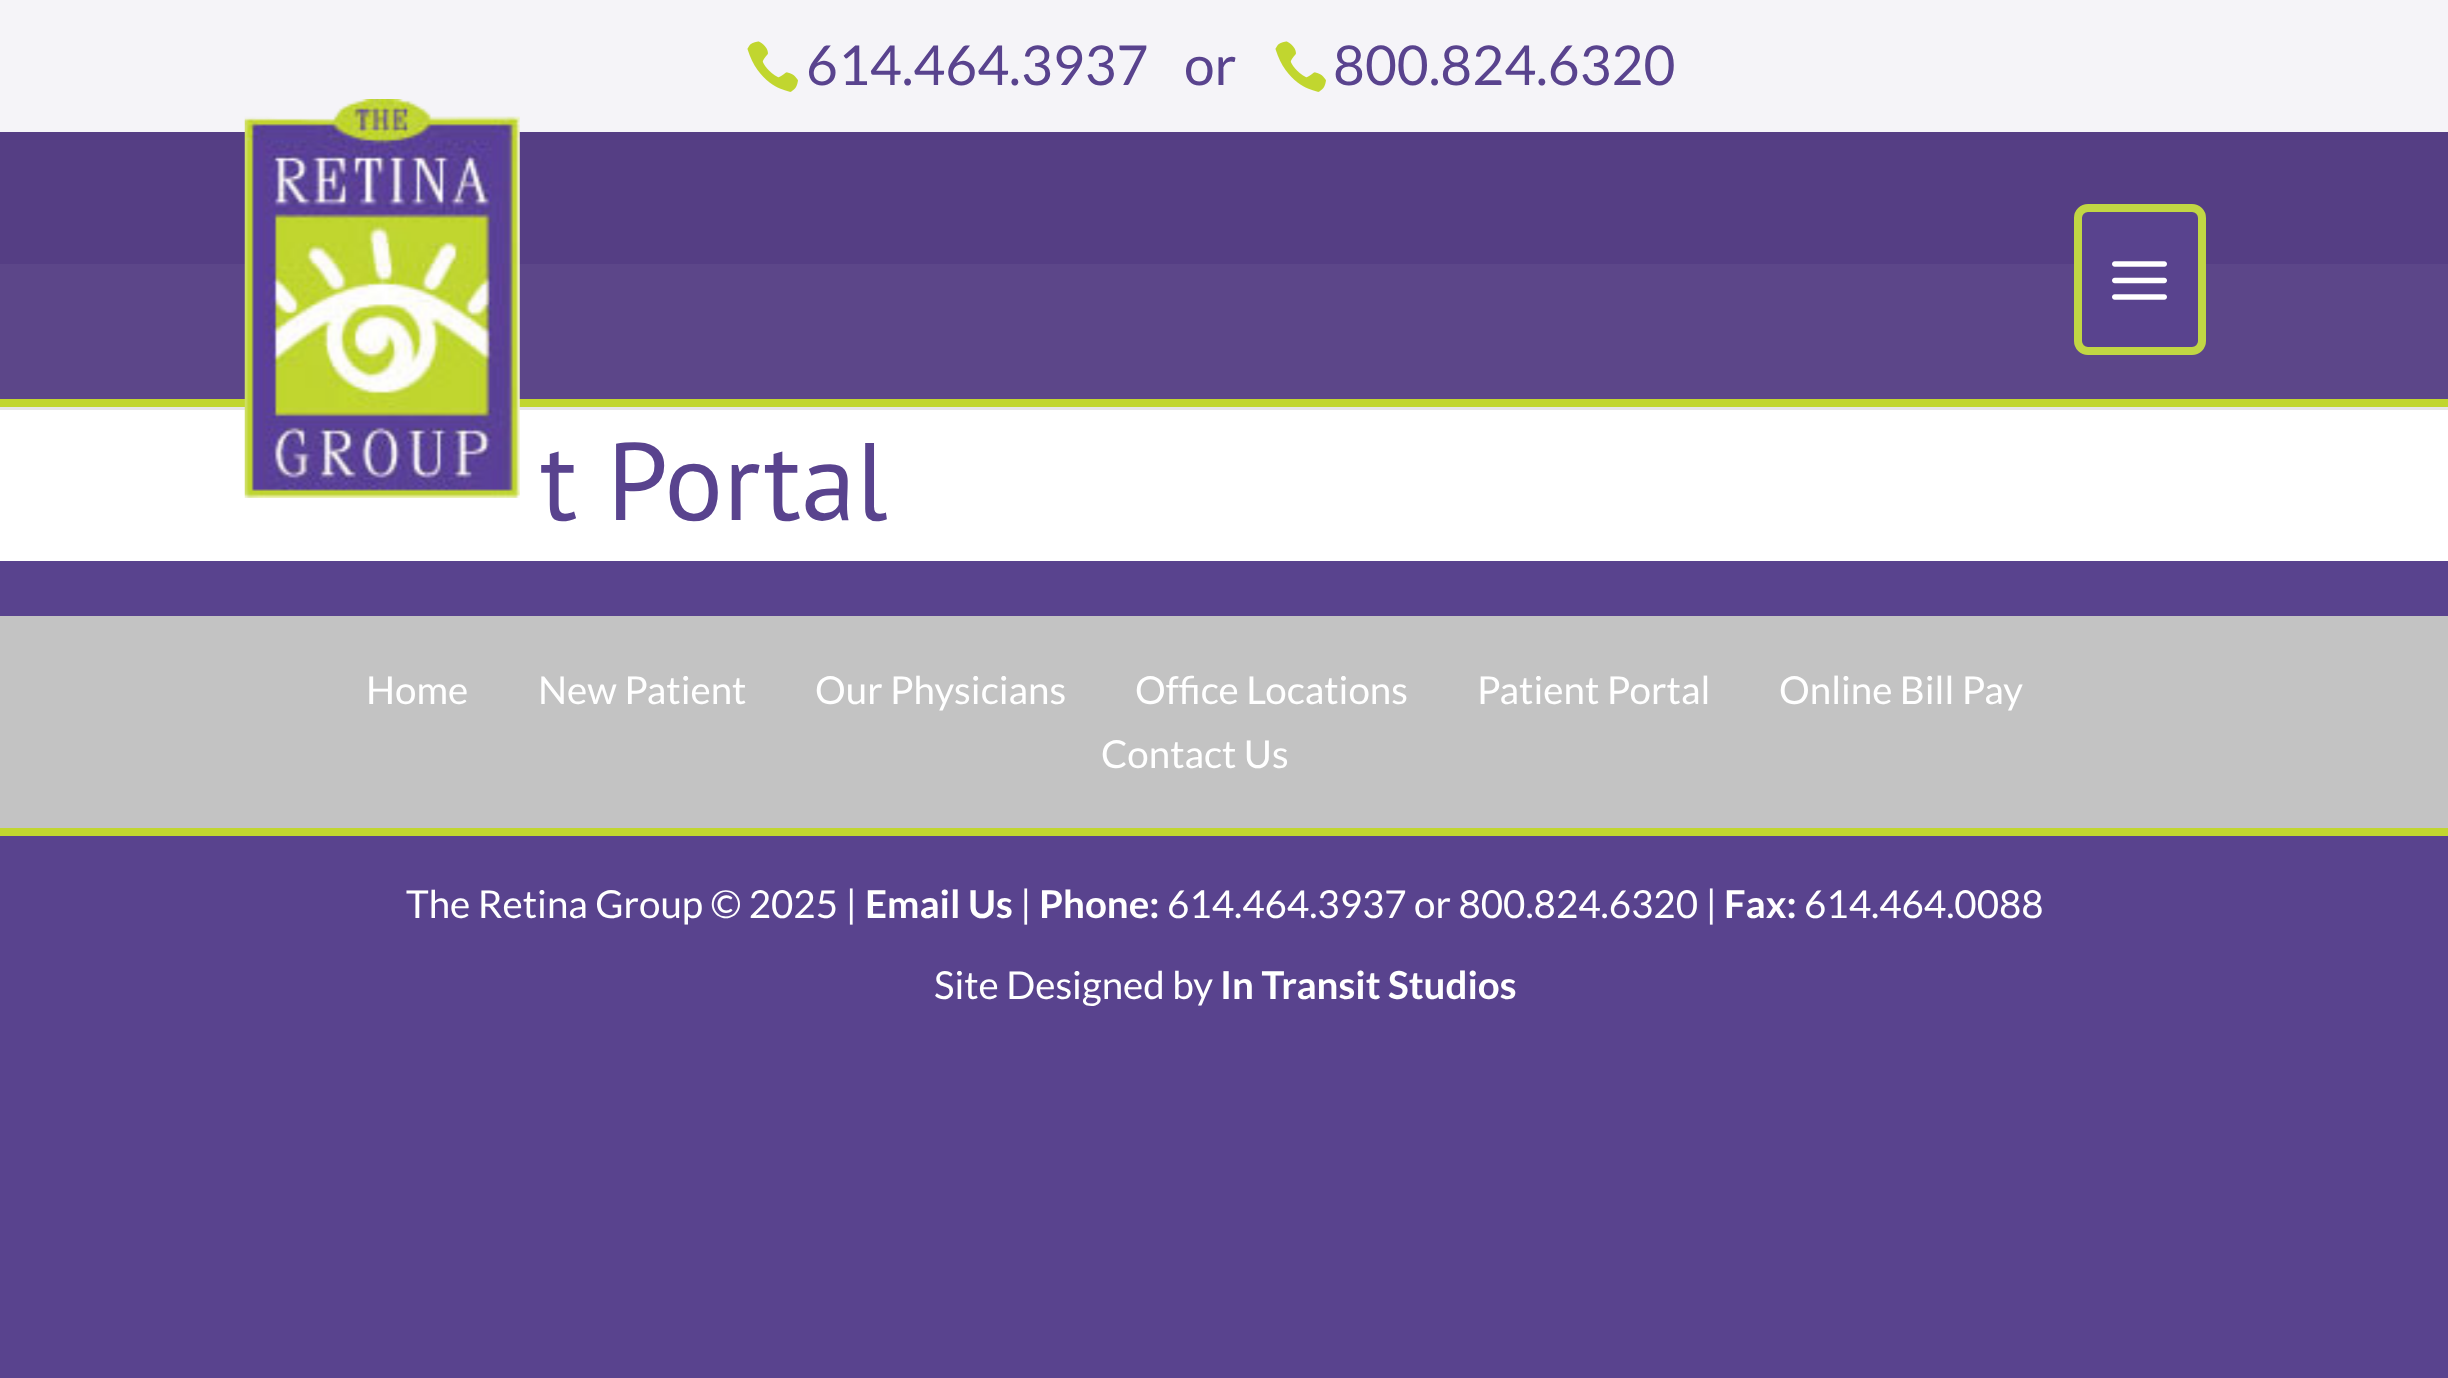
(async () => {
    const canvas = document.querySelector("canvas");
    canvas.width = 2448;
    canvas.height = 1378;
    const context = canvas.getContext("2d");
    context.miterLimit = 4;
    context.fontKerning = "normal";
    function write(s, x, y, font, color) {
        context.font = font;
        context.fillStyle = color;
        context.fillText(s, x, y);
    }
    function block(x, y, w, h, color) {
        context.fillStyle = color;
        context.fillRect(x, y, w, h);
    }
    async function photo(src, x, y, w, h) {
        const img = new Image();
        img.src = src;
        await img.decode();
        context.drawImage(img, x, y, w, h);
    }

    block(0, 0, 2448, 1378, "rgb(89, 67, 142)");
    block(0, 132, 2448, 132, "rgb(85, 62, 132)");
    block(0, 0, 2448, 132, "rgb(245, 244, 248)");
    await photo("media/1.png", 747, 41, 51, 51);
    write("614.464.3937", 806, 85, "55px Lato", "rgb(89, 67, 142)");
    write("or", 1184, 85, "55px Lato", "rgb(89, 67, 142)");
    await photo("media/1.png", 1275, 41, 51, 51);
    write("800.824.6320", 1333, 85, "55px Lato", "rgb(89, 67, 142)");
    block(0, 407, 2448, 3, "rgb(230, 230, 230)");
    block(0, 399, 2448, 8, "rgb(193, 214, 47)");
    block(0, 410, 2448, 151, "rgb(255, 255, 255)");
    block(0, 264, 2448, 135, "rgb(92, 70, 137)");
    await photo("media/2.png", 244, 99, 276, 399);
    context.fillStyle = "rgb(89, 67, 142)";
    context.beginPath();
    context.roundRect(2078, 208, 124, 143, 10);
    context.fill();
    context.strokeStyle = "rgb(193, 214, 68)";
    context.lineWidth = 8;
    context.stroke();
    await photo("media/3.png", 2112, 261, 55, 39);
    write("t Portal", 540, 520, "110px PT Sans", "rgb(89, 67, 142)");
    block(0, 616, 2448, 212, "rgb(195, 195, 195)");
    write("Home", 366, 704, "38.5px Lato", "rgb(255, 255, 255)");
    write("New Patient", 538, 704, "38.5px Lato", "rgb(255, 255, 255)");
    write("Our Physicians", 815, 704, "38.5px Lato", "rgb(255, 255, 255)");
    write("Office Locations", 1135, 704, "38.5px Lato", "rgb(255, 255, 255)");
    write("Patient Portal", 1477, 704, "38.5px Lato", "rgb(255, 255, 255)");
    write("Online Bill Pay", 1779, 704, "38.5px Lato", "rgb(255, 255, 255)");
    write("Contact Us", 1101, 768, "38.5px Lato", "rgb(255, 255, 255)");
    block(0, 828, 2448, 8, "rgb(193, 214, 47)");
    write("The Retina Group © 2025 |", 406, 918, "38.5px Lato", "rgb(255, 255, 255)");
    write("Email Us", 865, 918, "bold 38.5px Lato", "rgb(255, 255, 255)");
    write("|", 1020, 918, "38.5px Lato", "rgb(255, 255, 255)");
    write("Phone:", 1039, 918, "bold 38.5px Lato", "rgb(255, 255, 255)");
    write("614.464.3937 or 800.824.6320 |", 1167, 918, "38.5px Lato", "rgb(255, 255, 255)");
    write("Fax:", 1724, 918, "bold 38.5px Lato", "rgb(255, 255, 255)");
    write("614.464.0088", 1804, 918, "38.5px Lato", "rgb(255, 255, 255)");
    write("Site Designed by", 934, 999, "38.5px Lato", "rgb(255, 255, 255)");
    write("In Transit Studios", 1220, 999, "bold 38.5px Lato", "rgb(255, 255, 255)");
})();
